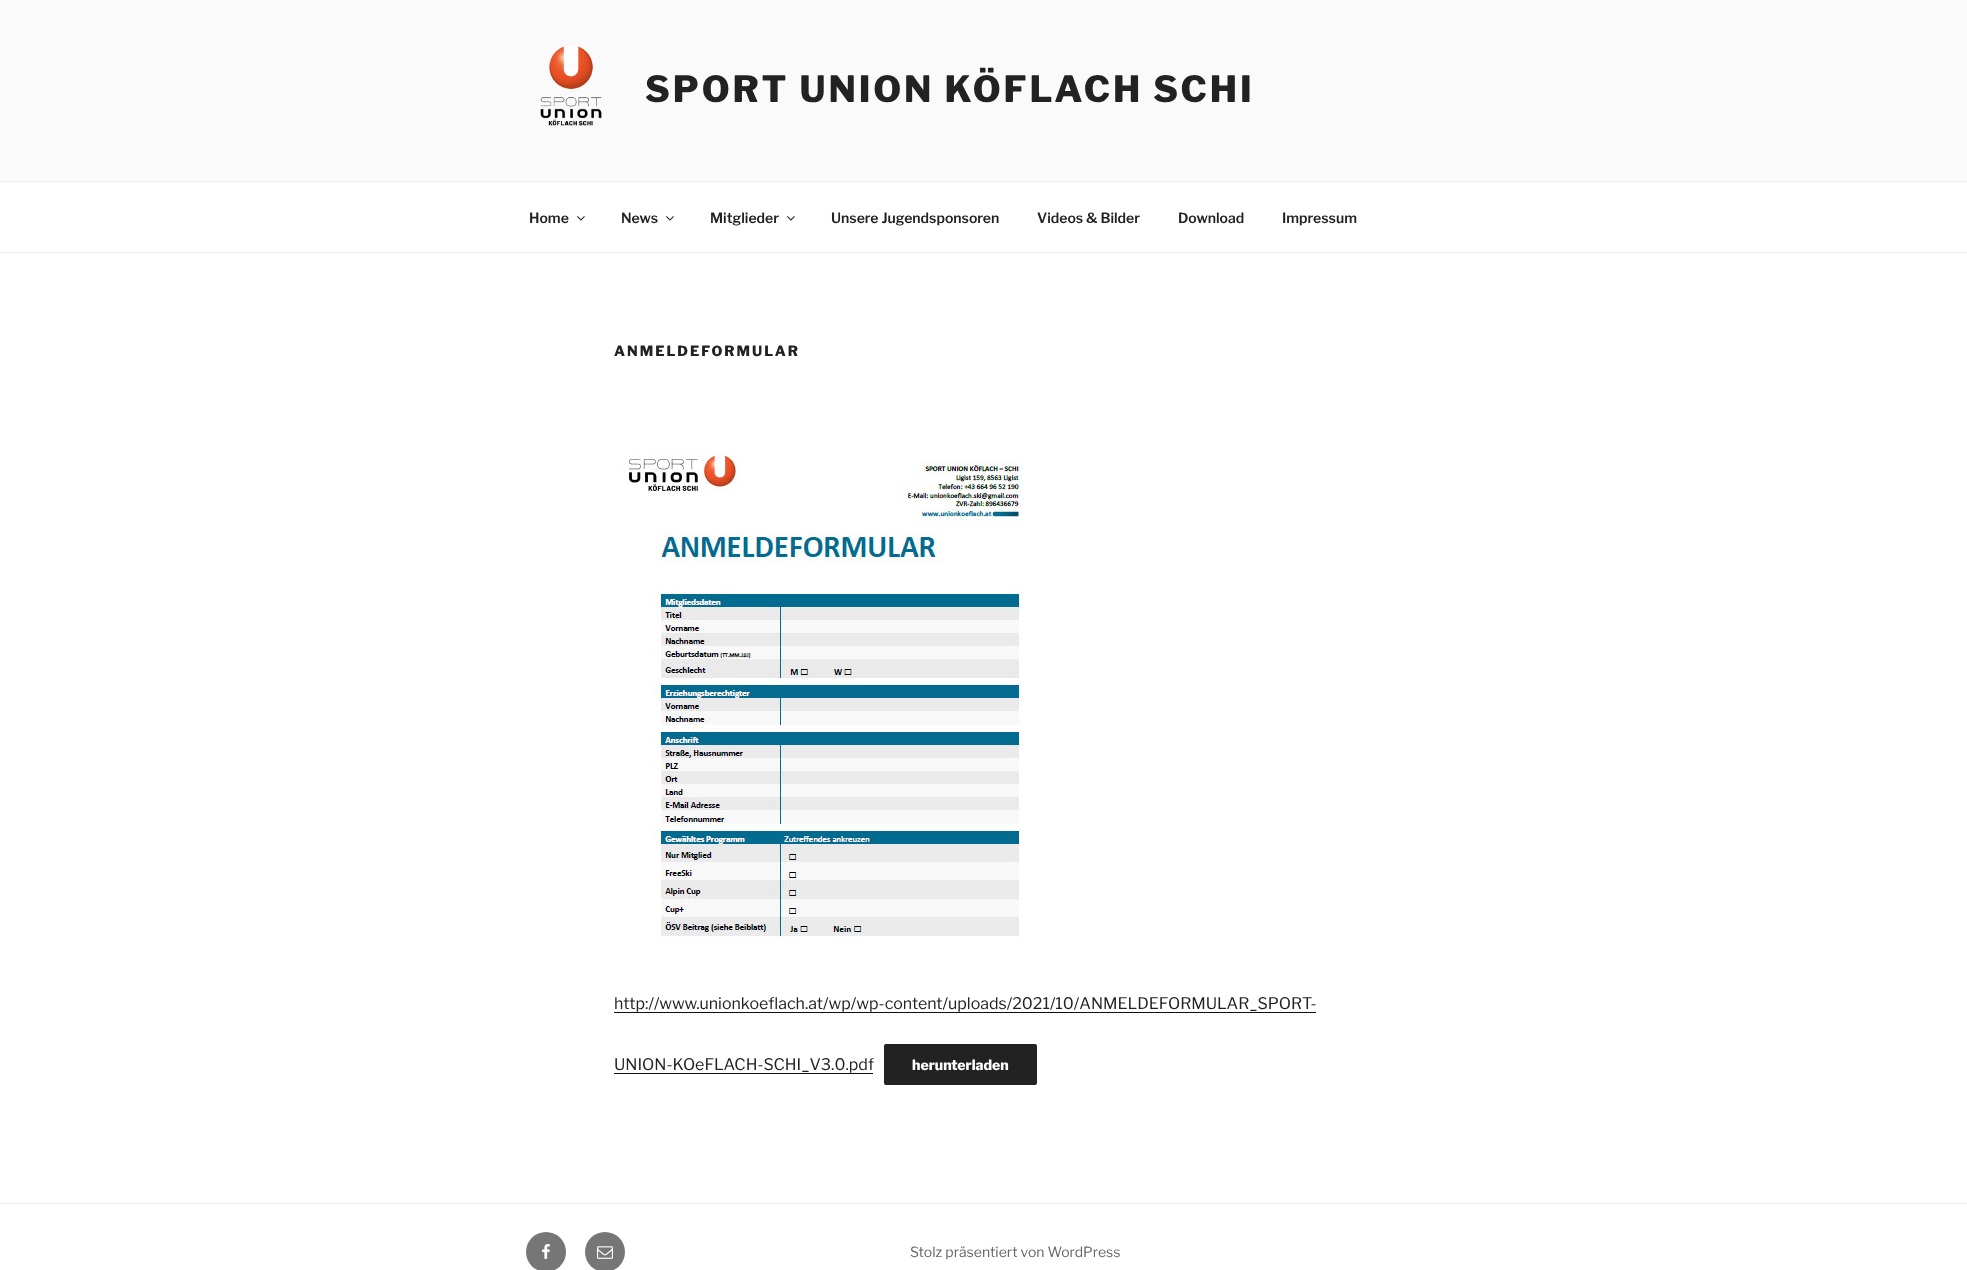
(async () => {
    const canvas = document.querySelector("canvas");
    canvas.width = 1967;
    canvas.height = 1270;
    const context = canvas.getContext("2d");
    context.miterLimit = 4;
    context.fontKerning = "normal";
    function write(s, x, y, font, color) {
        context.font = font;
        context.fillStyle = color;
        context.fillText(s, x, y);
    }
    function block(x, y, w, h, color) {
        context.fillStyle = color;
        context.fillRect(x, y, w, h);
    }
    function card(x, y, w, h, r, color) {
        context.fillStyle = color;
        context.beginPath();
        context.roundRect(x, y, w, h, r);
        context.fill();
    }
    async function photo(src, x, y, w, h) {
        const img = new Image();
        img.src = src;
        await img.decode();
        context.drawImage(img, x, y, w, h);
    }

    block(0, 0, 1967, 1270, "rgb(255, 255, 255)");
    block(0, 0, 1967, 181, "rgb(250, 250, 250)");
    await photo("media/1.png", 540, 46, 62, 80);
    context.letterSpacing = "2.9px";
    write("SPORT UNION KÖFLACH SCHI", 645, 102, "800 36px Libre Franklin", "rgb(34, 34, 34)");
    block(0, 181, 1967, 1, "rgb(238, 238, 238)");
    block(0, 252, 1967, 1, "rgb(238, 238, 238)");
    context.letterSpacing = "0px";
    write("Home", 529, 223, "600 14px Libre Franklin", "rgb(34, 34, 34)");
    await photo("media/2.png", 577, 216, 8, 5);
    write("News", 621, 223, "600 14px Libre Franklin", "rgb(34, 34, 34)");
    await photo("media/2.png", 666, 216, 8, 5);
    write("Mitglieder", 710, 223, "600 14px Libre Franklin", "rgb(34, 34, 34)");
    await photo("media/2.png", 787, 216, 8, 5);
    write("Unsere Jugendsponsoren", 831, 223, "600 14px Libre Franklin", "rgb(34, 34, 34)");
    write("Videos & Bilder", 1037, 223, "600 14px Libre Franklin", "rgb(34, 34, 34)");
    write("Download", 1178, 223, "600 14px Libre Franklin", "rgb(34, 34, 34)");
    write("Impressum", 1282, 223, "600 14px Libre Franklin", "rgb(34, 34, 34)");
    context.letterSpacing = "2px";
    write("ANMELDEFORMULAR", 614, 356, "800 14px Libre Franklin", "rgb(34, 34, 34)");
    await photo("media/3.png", 622, 452, 400, 488);
    context.letterSpacing = "0px";
    write("http://www.unionkoeflach.at/wp/wp-content/uploads/2021/10/ANMELDEFORMULAR_SPORT-", 614, 1009, "16px Libre Franklin", "rgb(34, 34, 34)");
    block(614, 1012, 702, 1, "rgb(15, 15, 15)");
    write("UNION-KOeFLACH-SCHI_V3.0.pdf", 614, 1070, "16px Libre Franklin", "rgb(34, 34, 34)");
    block(614, 1073, 259, 1, "rgb(15, 15, 15)");
    card(884, 1044, 153, 41, 2, "rgb(34, 34, 34)");
    write("herunterladen", 912, 1070, "800 14px Libre Franklin", "rgb(255, 255, 255)");
    block(0, 1203, 1967, 1, "rgb(238, 238, 238)");
    context.fillStyle = "rgb(118, 118, 118)";
    context.beginPath();
    context.arc(546, 1252, 20, 0, Math.PI * 2);
    context.fill();
    await photo("media/4.png", 542, 1244, 8, 15);
    context.beginPath();
    context.arc(605, 1252, 20, 0, Math.PI * 2);
    context.fill();
    await photo("media/5.png", 597, 1246, 16, 13);
    write("Stolz präsentiert von WordPress", 910, 1257, "14px Libre Franklin", "rgb(102, 102, 102)");
})();
